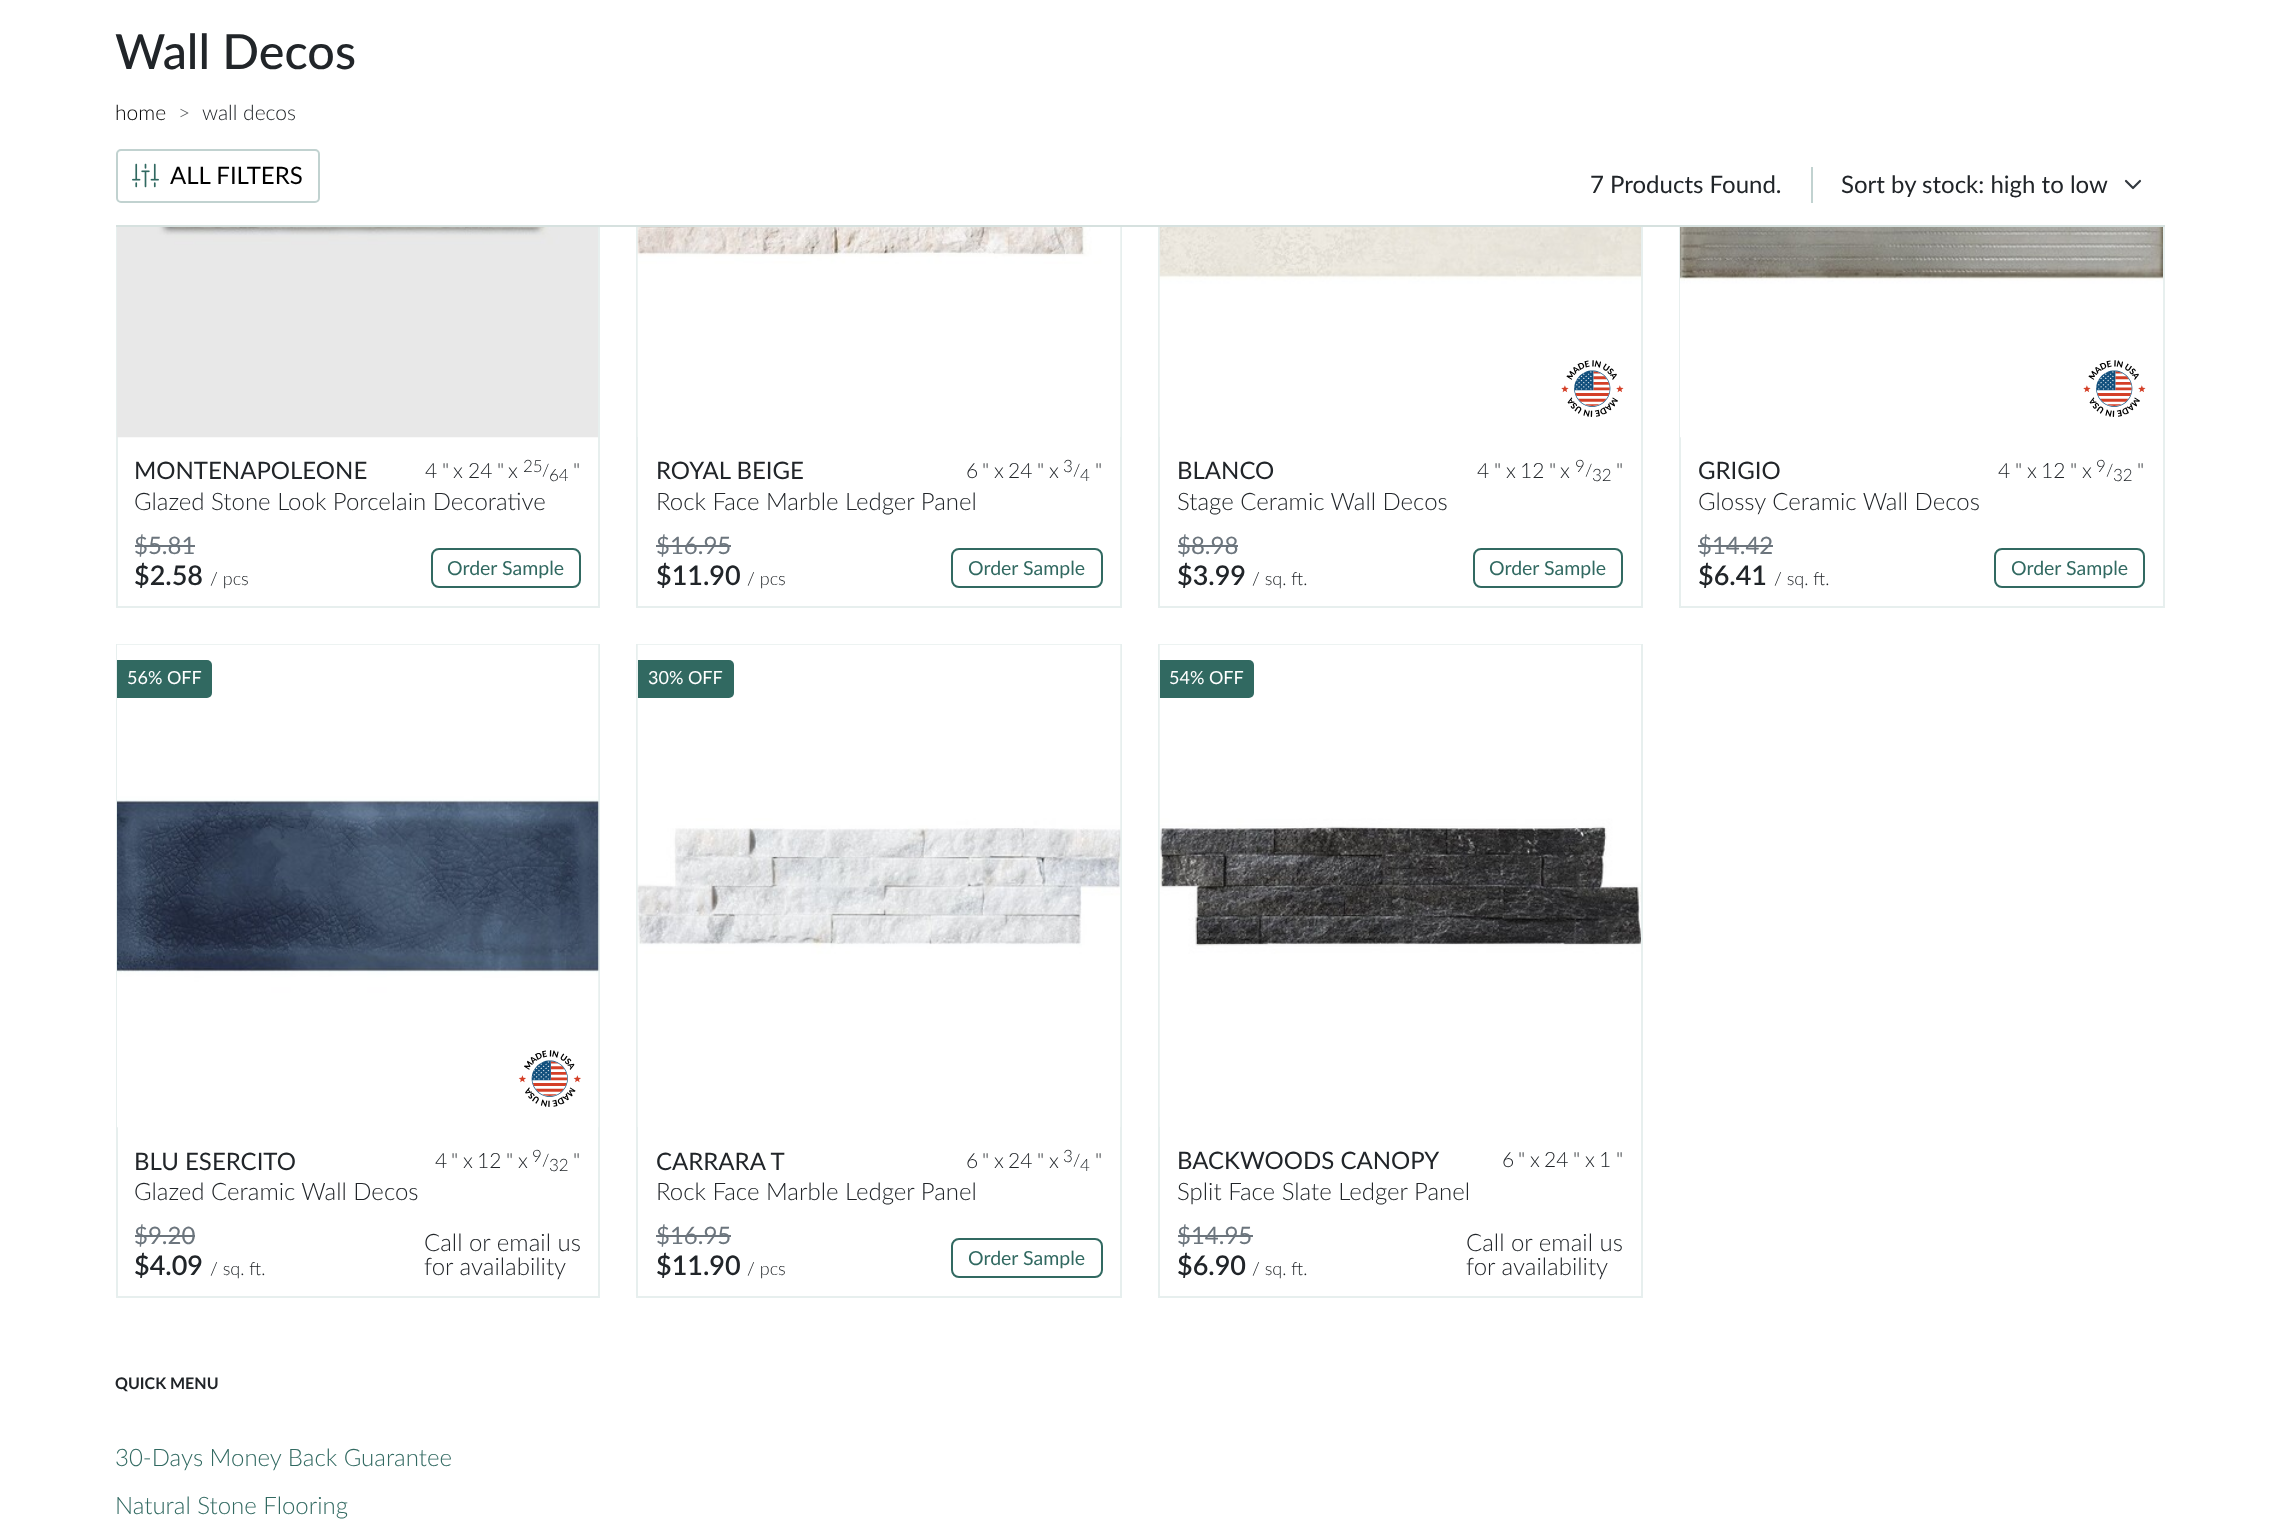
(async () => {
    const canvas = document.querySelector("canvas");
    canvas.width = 2278;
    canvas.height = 1521;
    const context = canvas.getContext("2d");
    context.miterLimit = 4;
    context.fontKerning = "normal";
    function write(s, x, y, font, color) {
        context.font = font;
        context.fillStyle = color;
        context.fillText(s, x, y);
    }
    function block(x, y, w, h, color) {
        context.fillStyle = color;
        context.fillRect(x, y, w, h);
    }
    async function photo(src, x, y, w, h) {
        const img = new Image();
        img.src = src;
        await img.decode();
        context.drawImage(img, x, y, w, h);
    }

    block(0, 0, 2278, 1521, "rgb(255, 255, 255)");
    context.strokeStyle = "rgb(231, 239, 238)";
    context.lineWidth = 2;
    context.strokeRect(117, -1, 482, 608);
    context.strokeRect(637, -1, 484, 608);
    context.strokeRect(1159, -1, 483, 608);
    context.strokeRect(1680, -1, 484, 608);
    block(116, 0, 2049, 225, "rgb(255, 255, 255)");
    write("Wall Decos", 115, 69, "500 48.5px Lato", "rgb(33, 37, 41)");
    write("home", 115, 120, "300 21px Lato", "rgb(0, 0, 0)");
    write(">", 178, 120, "300 21px Lato", "rgb(89, 92, 95)");
    write("wall decos", 202, 120, "300 21px Lato", "rgb(33, 37, 41)");
    block(116, 225, 2049, 2, "rgb(214, 225, 223)");
    context.beginPath();
    context.roundRect(117, 150, 202, 52, 4);
    context.strokeStyle = "rgb(193, 210, 208)";
    context.stroke();
    await photo("media/1.png", 132, 163, 27, 25);
    write("ALL FILTERS", 170, 184, "24px Lato", "rgb(0, 0, 0)");
    block(1811, 167, 2, 36, "rgb(193, 210, 208)");
    write("7 Products Found.", 1590, 193, "24px Lato", "rgb(33, 37, 41)");
    context.beginPath();
    context.moveTo(2126, 181);
    context.lineTo(2133, 188);
    context.lineTo(2140, 181);
    context.strokeStyle = "rgb(52, 58, 64)";
    context.lineWidth = 2.2;
    context.lineCap = "round";
    context.lineJoin = "round";
    context.stroke();
    write("Sort by stock: high to low", 1841, 193, "24px Lato", "rgb(33, 37, 41)");
    await photo("media/2.png", 117, 227, 481, 211);
    write("MONTENAPOLEONE", 134, 479, "24px Lato", "rgb(33, 37, 41)");
    write("4", 425, 478, "300 21px Lato", "rgb(33, 37, 41)");
    write("\"", 442, 478, "300 21px Lato", "rgb(33, 37, 41)");
    write("24", 468, 478, "300 21px Lato", "rgb(33, 37, 41)");
    write("\"", 497, 478, "300 21px Lato", "rgb(33, 37, 41)");
    write("25", 523, 472, "300 17px Lato", "rgb(33, 37, 41)");
    write("/", 542, 476, "300 17px Lato", "rgb(33, 37, 41)");
    write("\"", 573, 478, "300 21px Lato", "rgb(33, 37, 41)");
    write("x", 453, 478, "300 21px Lato", "rgb(33, 37, 41)");
    write("x", 508, 478, "300 21px Lato", "rgb(33, 37, 41)");
    write("64", 549, 481, "300 17px Lato", "rgb(33, 37, 41)");
    write("Glazed Stone Look Porcelain Decorative", 134, 510, "300 24px Lato", "rgb(33, 37, 41)");
    write("$5.81", 134, 554, "24px Lato", "rgb(108, 117, 125)");
    block(135, 545, 60, 2, "rgb(108, 117, 125)");
    write("$2.58", 134, 585, "600 27px Lato", "rgb(33, 37, 41)");
    write("/ pcs", 210, 585, "300 18px Lato", "rgb(33, 37, 41)");
    context.beginPath();
    context.roundRect(432, 549, 148, 38, 7);
    context.strokeStyle = "rgb(49, 105, 97)";
    context.lineWidth = 2;
    context.lineJoin = "miter";
    context.stroke();
    write("Order Sample", 447, 575, "19.5px Lato", "rgb(49, 105, 97)");
    await photo("media/3.png", 637, 227, 484, 210);
    write("ROYAL BEIGE", 656, 479, "24px Lato", "rgb(33, 37, 41)");
    write("6", 966, 478, "300 21px Lato", "rgb(33, 37, 41)");
    write("\"", 982, 478, "300 21px Lato", "rgb(33, 37, 41)");
    write("24", 1008, 478, "300 21px Lato", "rgb(33, 37, 41)");
    write("\"", 1037, 478, "300 21px Lato", "rgb(33, 37, 41)");
    write("3", 1063, 472, "300 17px Lato", "rgb(33, 37, 41)");
    write("/", 1073, 476, "300 17px Lato", "rgb(33, 37, 41)");
    write("\"", 1095, 478, "300 21px Lato", "rgb(33, 37, 41)");
    write("x", 994, 478, "300 21px Lato", "rgb(33, 37, 41)");
    write("x", 1049, 478, "300 21px Lato", "rgb(33, 37, 41)");
    write("4", 1080, 481, "300 17px Lato", "rgb(33, 37, 41)");
    write("Rock Face Marble Ledger Panel", 656, 510, "300 24px Lato", "rgb(33, 37, 41)");
    write("$16.95", 656, 554, "24px Lato", "rgb(108, 117, 125)");
    block(656, 545, 75, 2, "rgb(108, 117, 125)");
    write("$11.90", 656, 585, "600 27px Lato", "rgb(33, 37, 41)");
    write("/ pcs", 747, 585, "300 18px Lato", "rgb(33, 37, 41)");
    context.beginPath();
    context.roundRect(952, 549, 150, 38, 7);
    context.stroke();
    write("Order Sample", 968, 575, "19.5px Lato", "rgb(49, 105, 97)");
    await photo("media/4.png", 1159, 227, 482, 210);
    await photo("media/5.png", 1561, 360, 63, 57);
    write("BLANCO", 1177, 479, "24px Lato", "rgb(33, 37, 41)");
    write("4", 1477, 478, "300 21px Lato", "rgb(33, 37, 41)");
    write("\"", 1494, 478, "300 21px Lato", "rgb(33, 37, 41)");
    write("12", 1520, 478, "300 21px Lato", "rgb(33, 37, 41)");
    write("\"", 1549, 478, "300 21px Lato", "rgb(33, 37, 41)");
    write("9", 1575, 472, "300 17px Lato", "rgb(33, 37, 41)");
    write("/", 1585, 476, "300 17px Lato", "rgb(33, 37, 41)");
    write("\"", 1616, 478, "300 21px Lato", "rgb(33, 37, 41)");
    write("x", 1506, 478, "300 21px Lato", "rgb(33, 37, 41)");
    write("x", 1560, 478, "300 21px Lato", "rgb(33, 37, 41)");
    write("32", 1592, 481, "300 17px Lato", "rgb(33, 37, 41)");
    write("Stage Ceramic Wall Decos", 1177, 510, "300 24px Lato", "rgb(33, 37, 41)");
    write("$8.98", 1177, 554, "24px Lato", "rgb(108, 117, 125)");
    block(1178, 545, 60, 2, "rgb(108, 117, 125)");
    write("$3.99", 1177, 585, "600 27px Lato", "rgb(33, 37, 41)");
    write("/ sq. ft.", 1252, 585, "300 18px Lato", "rgb(33, 37, 41)");
    context.beginPath();
    context.roundRect(1474, 549, 148, 38, 7);
    context.stroke();
    write("Order Sample", 1489, 575, "19.5px Lato", "rgb(49, 105, 97)");
    await photo("media/6.png", 1680, 227, 483, 211);
    await photo("media/5.png", 2083, 360, 63, 57);
    write("GRIGIO", 1698, 479, "24px Lato", "rgb(33, 37, 41)");
    write("4", 1998, 478, "300 21px Lato", "rgb(33, 37, 41)");
    write("\"", 2015, 478, "300 21px Lato", "rgb(33, 37, 41)");
    write("12", 2041, 478, "300 21px Lato", "rgb(33, 37, 41)");
    write("\"", 2070, 478, "300 21px Lato", "rgb(33, 37, 41)");
    write("9", 2096, 472, "300 17px Lato", "rgb(33, 37, 41)");
    write("/", 2106, 476, "300 17px Lato", "rgb(33, 37, 41)");
    write("\"", 2137, 478, "300 21px Lato", "rgb(33, 37, 41)");
    write("x", 2027, 478, "300 21px Lato", "rgb(33, 37, 41)");
    write("x", 2082, 478, "300 21px Lato", "rgb(33, 37, 41)");
    write("32", 2113, 481, "300 17px Lato", "rgb(33, 37, 41)");
    write("Glossy Ceramic Wall Decos", 1698, 510, "300 24px Lato", "rgb(33, 37, 41)");
    write("$14.42", 1698, 554, "24px Lato", "rgb(108, 117, 125)");
    block(1698, 545, 75, 2, "rgb(108, 117, 125)");
    write("$6.41", 1698, 585, "600 27px Lato", "rgb(33, 37, 41)");
    write("/ sq. ft.", 1774, 585, "300 18px Lato", "rgb(33, 37, 41)");
    context.beginPath();
    context.roundRect(1995, 549, 149, 38, 7);
    context.stroke();
    write("Order Sample", 2011, 575, "19.5px Lato", "rgb(49, 105, 97)");
    context.strokeStyle = "rgb(231, 239, 238)";
    context.strokeRect(117, 645, 482, 652);
    await photo("media/7.png", 117, 644, 482, 484);
    context.beginPath();
    context.roundRect(117, 660, 95, 38, [0, 5, 5, 0]);
    context.fill();
    write("56% OFF", 127, 684, "18px Lato", "rgb(255, 255, 255)");
    await photo("media/8.png", 518, 1050, 63, 57);
    write("BLU ESERCITO", 134, 1170, "24px Lato", "rgb(33, 37, 41)");
    write("4", 435, 1168, "300 21px Lato", "rgb(33, 37, 41)");
    write("\"", 451, 1168, "300 21px Lato", "rgb(33, 37, 41)");
    write("12", 477, 1168, "300 21px Lato", "rgb(33, 37, 41)");
    write("\"", 506, 1168, "300 21px Lato", "rgb(33, 37, 41)");
    write("9", 532, 1162, "300 17px Lato", "rgb(33, 37, 41)");
    write("/", 542, 1166, "300 17px Lato", "rgb(33, 37, 41)");
    write("\"", 573, 1168, "300 21px Lato", "rgb(33, 37, 41)");
    write("x", 463, 1168, "300 21px Lato", "rgb(33, 37, 41)");
    write("x", 518, 1168, "300 21px Lato", "rgb(33, 37, 41)");
    write("32", 549, 1171, "300 17px Lato", "rgb(33, 37, 41)");
    write("Glazed Ceramic Wall Decos", 134, 1200, "300 24px Lato", "rgb(33, 37, 41)");
    write("$9.20", 134, 1244, "24px Lato", "rgb(108, 117, 125)");
    block(135, 1235, 60, 2, "rgb(108, 117, 125)");
    write("$4.09", 134, 1275, "600 27px Lato", "rgb(33, 37, 41)");
    write("/ sq. ft.", 210, 1275, "300 18px Lato", "rgb(33, 37, 41)");
    write("Call or email us", 424, 1251, "300 24px Lato", "rgb(33, 37, 41)");
    write("for availability", 424, 1275, "300 24px Lato", "rgb(33, 37, 41)");
    context.strokeRect(637, 645, 484, 652);
    await photo("media/9.png", 637, 644, 484, 483);
    context.fillStyle = "rgb(49, 105, 97)";
    context.beginPath();
    context.roundRect(638, 660, 96, 38, [0, 5, 5, 0]);
    context.fill();
    write("30% OFF", 648, 684, "18px Lato", "rgb(255, 255, 255)");
    write("CARRARA T", 656, 1170, "24px Lato", "rgb(33, 37, 41)");
    write("6", 966, 1168, "300 21px Lato", "rgb(33, 37, 41)");
    write("\"", 982, 1168, "300 21px Lato", "rgb(33, 37, 41)");
    write("24", 1008, 1168, "300 21px Lato", "rgb(33, 37, 41)");
    write("\"", 1037, 1168, "300 21px Lato", "rgb(33, 37, 41)");
    write("3", 1063, 1162, "300 17px Lato", "rgb(33, 37, 41)");
    write("/", 1073, 1166, "300 17px Lato", "rgb(33, 37, 41)");
    write("\"", 1095, 1168, "300 21px Lato", "rgb(33, 37, 41)");
    write("x", 994, 1168, "300 21px Lato", "rgb(33, 37, 41)");
    write("x", 1049, 1168, "300 21px Lato", "rgb(33, 37, 41)");
    write("4", 1080, 1171, "300 17px Lato", "rgb(33, 37, 41)");
    write("Rock Face Marble Ledger Panel", 656, 1200, "300 24px Lato", "rgb(33, 37, 41)");
    write("$16.95", 656, 1244, "24px Lato", "rgb(108, 117, 125)");
    block(656, 1235, 75, 2, "rgb(108, 117, 125)");
    write("$11.90", 656, 1275, "600 27px Lato", "rgb(33, 37, 41)");
    write("/ pcs", 747, 1275, "300 18px Lato", "rgb(33, 37, 41)");
    context.beginPath();
    context.roundRect(952, 1239, 150, 38, 7);
    context.strokeStyle = "rgb(49, 105, 97)";
    context.stroke();
    write("Order Sample", 968, 1265, "19.5px Lato", "rgb(49, 105, 97)");
    context.strokeStyle = "rgb(231, 239, 238)";
    context.strokeRect(1159, 645, 483, 652);
    await photo("media/10.png", 1159, 644, 482, 483);
    context.beginPath();
    context.roundRect(1160, 660, 94, 38, [0, 5, 5, 0]);
    context.fill();
    write("54% OFF", 1169, 684, "18px Lato", "rgb(255, 255, 255)");
    write("BACKWOODS CANOPY", 1177, 1169, "24px Lato", "rgb(33, 37, 41)");
    write("6", 1502, 1167, "300 21px Lato", "rgb(33, 37, 41)");
    write("\"", 1518, 1167, "300 21px Lato", "rgb(33, 37, 41)");
    write("24", 1544, 1167, "300 21px Lato", "rgb(33, 37, 41)");
    write("\"", 1573, 1167, "300 21px Lato", "rgb(33, 37, 41)");
    write("1", 1599, 1167, "300 21px Lato", "rgb(33, 37, 41)");
    write("\"", 1616, 1167, "300 21px Lato", "rgb(33, 37, 41)");
    write("x", 1530, 1167, "300 21px Lato", "rgb(33, 37, 41)");
    write("x", 1585, 1167, "300 21px Lato", "rgb(33, 37, 41)");
    write("Split Face Slate Ledger Panel", 1177, 1200, "300 24px Lato", "rgb(33, 37, 41)");
    write("$14.95", 1177, 1244, "24px Lato", "rgb(108, 117, 125)");
    block(1178, 1235, 75, 2, "rgb(108, 117, 125)");
    write("$6.90", 1177, 1275, "600 27px Lato", "rgb(33, 37, 41)");
    write("/ sq. ft.", 1252, 1275, "300 18px Lato", "rgb(33, 37, 41)");
    write("Call or email us", 1466, 1251, "300 24px Lato", "rgb(33, 37, 41)");
    write("for availability", 1466, 1275, "300 24px Lato", "rgb(33, 37, 41)");
    write("QUICK MENU", 115, 1389, "bold 16px Lato", "rgb(33, 37, 41)");
    write("30-Days Money Back Guarantee", 115, 1466, "300 24px Lato", "rgb(49, 105, 97)");
    write("Natural Stone Flooring", 115, 1514, "300 24px Lato", "rgb(49, 105, 97)");
})();
